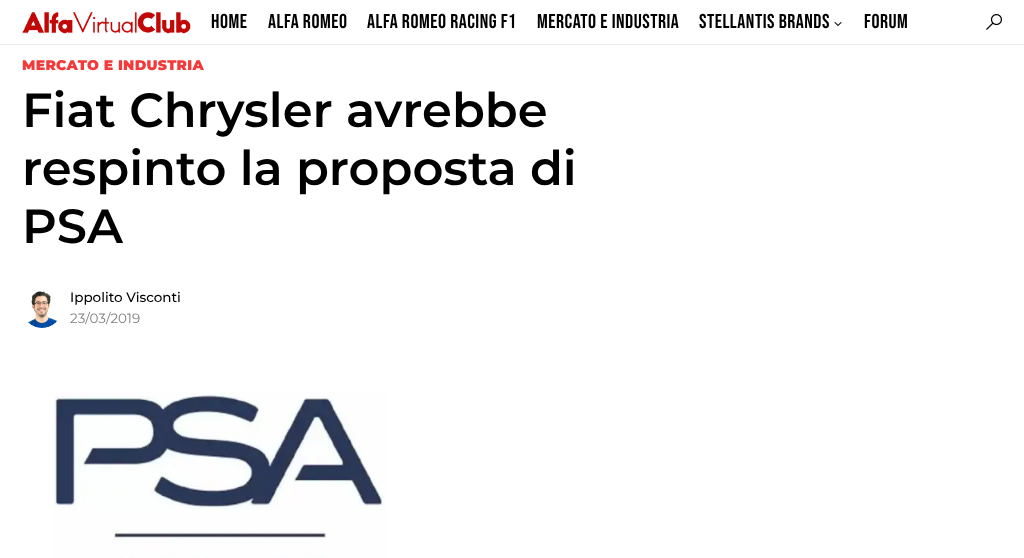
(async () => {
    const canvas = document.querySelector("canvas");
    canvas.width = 1024;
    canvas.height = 558;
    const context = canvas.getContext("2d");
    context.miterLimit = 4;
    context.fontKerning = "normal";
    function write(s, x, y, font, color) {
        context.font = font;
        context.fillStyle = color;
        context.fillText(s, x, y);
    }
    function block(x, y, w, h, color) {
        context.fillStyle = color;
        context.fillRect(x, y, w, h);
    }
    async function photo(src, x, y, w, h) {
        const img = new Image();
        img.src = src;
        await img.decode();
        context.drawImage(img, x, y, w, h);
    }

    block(0, 0, 1024, 558, "rgb(255, 255, 255)");
    block(0, 44, 1024, 1, "rgb(233, 236, 239)");
    await photo("media/1.png", 22, 12, 169, 22);
    context.letterSpacing = "0.5px";
    write("Home", 211, 28, "20px Bebas Neue", "rgb(0, 0, 0)");
    write("Alfa Romeo", 268, 28, "20px Bebas Neue", "rgb(0, 0, 0)");
    write("Alfa Romeo Racing F1", 367, 28, "20px Bebas Neue", "rgb(0, 0, 0)");
    write("Mercato e Industria", 537, 28, "20px Bebas Neue", "rgb(0, 0, 0)");
    write("Stellantis Brands", 699, 28, "20px Bebas Neue", "rgb(0, 0, 0)");
    await photo("media/2.png", 834, 22, 8, 4);
    write("Forum", 864, 28, "20px Bebas Neue", "rgb(0, 0, 0)");
    await photo("media/3.png", 986, 14, 16, 16);
    context.letterSpacing = "0.3px";
    write("MERCATO E INDUSTRIA", 22, 70, "100 14px 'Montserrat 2'", "rgb(242, 58, 58)");
    context.letterSpacing = "0px";
    write("Fiat Chrysler avrebbe", 22, 127, "100 48px Montserrat", "rgb(0, 0, 0)");
    write("respinto la proposta di", 22, 185, "100 48px Montserrat", "rgb(0, 0, 0)");
    write("PSA", 22, 243, "100 48px Montserrat", "rgb(0, 0, 0)");
    await photo("media/4.png", 28, 291, 29, 37);
    write("Ippolito Visconti", 70, 302, "100 13.5px 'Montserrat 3'", "rgb(0, 0, 0)");
    write("23/03/2019", 70, 323, "13.5px Montserrat", "rgb(129, 129, 129)");
    await photo("media/5.png", 53, 392, 333, 166);
})();
